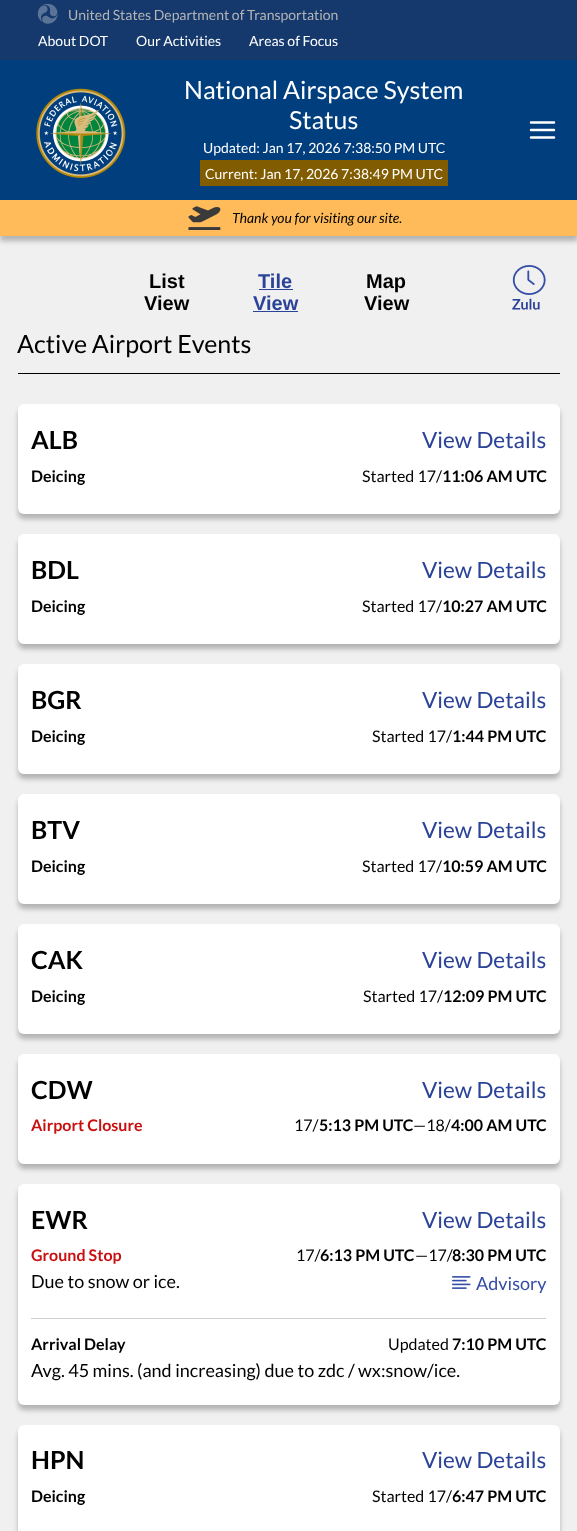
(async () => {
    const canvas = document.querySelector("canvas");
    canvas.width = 577;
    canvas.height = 1531;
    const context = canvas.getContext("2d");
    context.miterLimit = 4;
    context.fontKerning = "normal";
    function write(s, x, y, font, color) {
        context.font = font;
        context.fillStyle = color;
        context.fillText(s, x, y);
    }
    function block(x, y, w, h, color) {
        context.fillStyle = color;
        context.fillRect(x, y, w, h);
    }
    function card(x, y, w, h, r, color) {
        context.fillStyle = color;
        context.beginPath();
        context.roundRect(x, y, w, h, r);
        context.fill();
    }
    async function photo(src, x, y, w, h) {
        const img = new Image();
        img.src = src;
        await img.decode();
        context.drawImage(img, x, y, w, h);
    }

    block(0, 0, 577, 1531, "rgb(240, 240, 240)");
    block(0, 0, 577, 60, "rgb(21, 57, 108)");
    await photo("media/1.png", 37, 4, 21, 20);
    write("United States Department of Transportation", 68, 20, "14px Lato", "rgb(181, 181, 181)");
    write("About DOT", 38, 46, "14px Lato", "rgb(255, 255, 255)");
    write("Our Activities", 136, 46, "14px Lato", "rgb(255, 255, 255)");
    write("Areas of Focus", 249, 46, "14px Lato", "rgb(255, 255, 255)");
    block(0, 60, 577, 140, "rgb(0, 62, 126)");
    await photo("media/2.png", 36, 88, 90, 90);
    write("National Airspace System", 184, 99, "25px Lato", "rgb(255, 255, 255)");
    write("Status", 289, 129, "25px Lato", "rgb(255, 255, 255)");
    write("Updated: Jan 17, 2026 7:38:50 PM UTC", 203, 153, "14px Lato", "rgb(255, 255, 255)");
    block(200, 160, 248, 26, "rgb(129, 92, 0)");
    write("Current: Jan 17, 2026 7:38:49 PM UTC", 205, 179, "14px Lato", "rgb(255, 255, 255)");
    context.beginPath();
    context.moveTo(531, 130);
    context.lineTo(554, 130);
    context.moveTo(531, 122.5);
    context.lineTo(554, 122.5);
    context.moveTo(531, 137.5);
    context.lineTo(554, 137.5);
    context.strokeStyle = "rgb(255, 255, 255)";
    context.lineWidth = 2.5;
    context.lineCap = "round";
    context.lineJoin = "round";
    context.stroke();
    context.fillStyle = "rgba(0, 0, 0, 0.25)";
    context.filter = "blur(2.5px)";
    context.beginPath();
    context.rect(0, 205, 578, 36);
    context.fill();
    context.filter = "none";
    block(0, 200, 577, 36, "rgb(255, 187, 89)");
    await photo("media/3.png", 188, 206, 33, 24);
    write("Thank you for visiting our site.", 232, 223, "italic 14px Lato", "rgb(0, 0, 0)");
    write("List", 149, 288, "bold 20px Liberation Sans", "rgb(0, 0, 0)");
    write("View", 144, 310, "bold 20px Liberation Sans", "rgb(0, 0, 0)");
    write("Tile", 258, 288, "bold 20px Liberation Sans", "rgb(42, 66, 151)");
    block(259, 289, 34, 1, "rgb(42, 66, 151)");
    write("View", 253, 310, "bold 20px Liberation Sans", "rgb(42, 66, 151)");
    block(253, 311, 45, 1, "rgb(42, 66, 151)");
    write("Map", 366, 288, "bold 20px Liberation Sans", "rgb(0, 0, 0)");
    write("View", 364, 310, "bold 20px Liberation Sans", "rgb(0, 0, 0)");
    await photo("media/4.png", 512, 265, 34, 45);
    block(18, 373, 542, 1, "rgb(0, 0, 0)");
    write("Active Airport Events", 17, 353, "25px Lato", "rgb(0, 0, 0)");
    context.fillStyle = "rgba(0, 0, 0, 0.25)";
    context.filter = "blur(2.5px)";
    context.beginPath();
    context.roundRect(18, 409, 542, 110, 6);
    context.fill();
    context.filter = "none";
    card(18, 404, 542, 110, 6, "rgb(255, 255, 255)");
    write("ALB", 31, 449, "bold 25px Lato", "rgb(0, 0, 0)");
    write("View Details", 422, 448, "22.5px Lato", "rgb(42, 66, 151)");
    write("Deicing", 31, 482, "bold 16px Lato", "rgb(0, 0, 0)");
    write("Started 17/", 362, 482, "16px Lato", "rgb(0, 0, 0)");
    write("11:06 AM UTC", 442, 482, "bold 16px Lato", "rgb(0, 0, 0)");
    context.fillStyle = "rgba(0, 0, 0, 0.25)";
    context.filter = "blur(2.5px)";
    context.beginPath();
    context.roundRect(18, 539, 542, 110, 6);
    context.fill();
    context.filter = "none";
    card(18, 534, 542, 110, 6, "rgb(255, 255, 255)");
    write("BDL", 31, 579, "bold 25px Lato", "rgb(0, 0, 0)");
    write("View Details", 422, 578, "22.5px Lato", "rgb(42, 66, 151)");
    write("Deicing", 31, 612, "bold 16px Lato", "rgb(0, 0, 0)");
    write("Started 17/", 362, 612, "16px Lato", "rgb(0, 0, 0)");
    write("10:27 AM UTC", 442, 612, "bold 16px Lato", "rgb(0, 0, 0)");
    context.fillStyle = "rgba(0, 0, 0, 0.25)";
    context.filter = "blur(2.5px)";
    context.beginPath();
    context.roundRect(18, 669, 542, 110, 6);
    context.fill();
    context.filter = "none";
    card(18, 664, 542, 110, 6, "rgb(255, 255, 255)");
    write("BGR", 31, 709, "bold 25px Lato", "rgb(0, 0, 0)");
    write("View Details", 422, 708, "22.5px Lato", "rgb(42, 66, 151)");
    write("Deicing", 31, 742, "bold 16px Lato", "rgb(0, 0, 0)");
    write("Started 17/", 372, 742, "16px Lato", "rgb(0, 0, 0)");
    write("1:44 PM UTC", 452, 742, "bold 16px Lato", "rgb(0, 0, 0)");
    context.fillStyle = "rgba(0, 0, 0, 0.25)";
    context.filter = "blur(2.5px)";
    context.beginPath();
    context.roundRect(18, 799, 542, 110, 6);
    context.fill();
    context.filter = "none";
    card(18, 794, 542, 110, 6, "rgb(255, 255, 255)");
    write("BTV", 31, 839, "bold 25px Lato", "rgb(0, 0, 0)");
    write("View Details", 422, 838, "22.5px Lato", "rgb(42, 66, 151)");
    write("Deicing", 31, 872, "bold 16px Lato", "rgb(0, 0, 0)");
    write("Started 17/", 362, 872, "16px Lato", "rgb(0, 0, 0)");
    write("10:59 AM UTC", 442, 872, "bold 16px Lato", "rgb(0, 0, 0)");
    context.fillStyle = "rgba(0, 0, 0, 0.25)";
    context.filter = "blur(2.5px)";
    context.beginPath();
    context.roundRect(18, 929, 542, 110, 6);
    context.fill();
    context.filter = "none";
    card(18, 924, 542, 110, 6, "rgb(255, 255, 255)");
    write("CAK", 31, 969, "bold 25px Lato", "rgb(0, 0, 0)");
    write("View Details", 422, 968, "22.5px Lato", "rgb(42, 66, 151)");
    write("Deicing", 31, 1002, "bold 16px Lato", "rgb(0, 0, 0)");
    write("Started 17/", 363, 1002, "16px Lato", "rgb(0, 0, 0)");
    write("12:09 PM UTC", 443, 1002, "bold 16px Lato", "rgb(0, 0, 0)");
    context.fillStyle = "rgba(0, 0, 0, 0.25)";
    context.filter = "blur(2.5px)";
    context.beginPath();
    context.roundRect(18, 1059, 542, 110, 6);
    context.fill();
    context.filter = "none";
    card(18, 1054, 542, 110, 6, "rgb(255, 255, 255)");
    write("CDW", 31, 1099, "bold 25px Lato", "rgb(0, 0, 0)");
    write("View Details", 422, 1098, "22.5px Lato", "rgb(42, 66, 151)");
    write("Airport Closure", 31, 1131, "bold 16px Lato", "rgb(201, 16, 16)");
    write("17/", 294, 1131, "16px Lato", "rgb(0, 0, 0)");
    write("5:13 PM UTC", 319, 1131, "bold 16px Lato", "rgb(0, 0, 0)");
    write("—18/", 413, 1131, "16px Lato", "rgb(0, 0, 0)");
    write("4:00 AM UTC", 451, 1131, "bold 16px Lato", "rgb(0, 0, 0)");
    context.fillStyle = "rgba(0, 0, 0, 0.25)";
    context.filter = "blur(2.5px)";
    context.beginPath();
    context.roundRect(18, 1189, 542, 221, 6);
    context.fill();
    context.filter = "none";
    card(18, 1184, 542, 221, 6, "rgb(255, 255, 255)");
    write("EWR", 31, 1229, "bold 25px Lato", "rgb(0, 0, 0)");
    write("View Details", 422, 1228, "22.5px Lato", "rgb(42, 66, 151)");
    write("Ground Stop", 31, 1261, "bold 16px Lato", "rgb(201, 16, 16)");
    write("17/", 296, 1261, "16px Lato", "rgb(0, 0, 0)");
    write("6:13 PM UTC", 320, 1261, "bold 16px Lato", "rgb(0, 0, 0)");
    write("—17/", 415, 1261, "16px Lato", "rgb(0, 0, 0)");
    write("8:30 PM UTC", 452, 1261, "bold 16px Lato", "rgb(0, 0, 0)");
    write("Due to snow or ice.", 31, 1288, "18px Lato", "rgb(0, 0, 0)");
    await photo("media/5.png", 452, 1276, 19, 13);
    write("Advisory", 476, 1290, "18px Lato", "rgb(52, 77, 166)");
    block(31, 1318, 515, 1, "rgb(207, 207, 207)");
    write("Arrival Delay", 31, 1350, "bold 16px Lato", "rgb(0, 0, 0)");
    write("Updated", 388, 1350, "16px Lato", "rgb(0, 0, 0)");
    write("7:10 PM UTC", 452, 1350, "bold 16px Lato", "rgb(0, 0, 0)");
    write("Avg. 45 mins. (and increasing) due to zdc / wx:snow/ice.", 31, 1377, "18px Lato", "rgb(0, 0, 0)");
    context.fillStyle = "rgba(0, 0, 0, 0.25)";
    context.filter = "blur(2.5px)";
    context.beginPath();
    context.roundRect(18, 1430, 542, 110, 6);
    context.fill();
    context.filter = "none";
    card(18, 1425, 542, 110, 6, "rgb(255, 255, 255)");
    write("HPN", 31, 1469, "bold 25px Lato", "rgb(0, 0, 0)");
    write("View Details", 422, 1468, "22.5px Lato", "rgb(42, 66, 151)");
    write("Deicing", 31, 1502, "bold 16px Lato", "rgb(0, 0, 0)");
    write("Started 17/", 372, 1502, "16px Lato", "rgb(0, 0, 0)");
    write("6:47 PM UTC", 452, 1502, "bold 16px Lato", "rgb(0, 0, 0)");
})();
